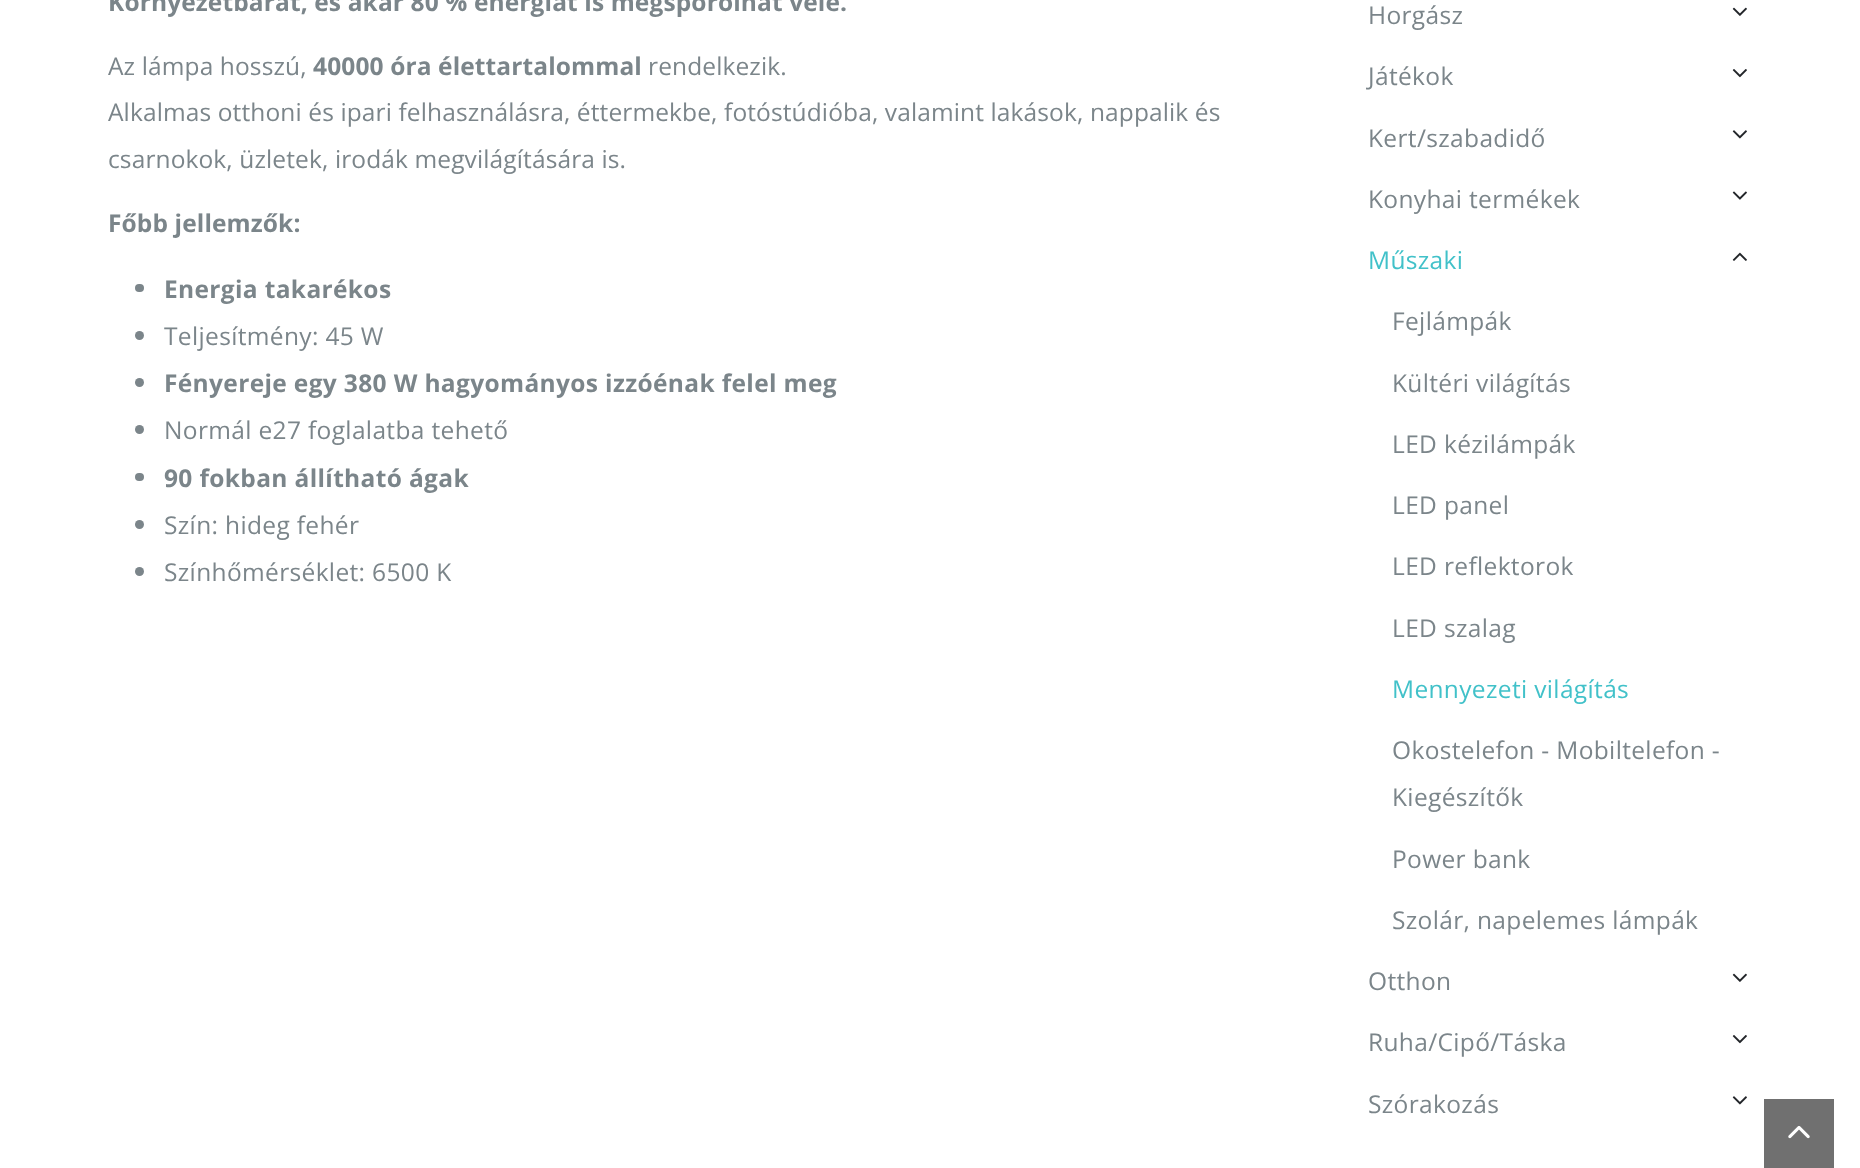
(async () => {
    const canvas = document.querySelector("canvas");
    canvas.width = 1860;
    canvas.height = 1168;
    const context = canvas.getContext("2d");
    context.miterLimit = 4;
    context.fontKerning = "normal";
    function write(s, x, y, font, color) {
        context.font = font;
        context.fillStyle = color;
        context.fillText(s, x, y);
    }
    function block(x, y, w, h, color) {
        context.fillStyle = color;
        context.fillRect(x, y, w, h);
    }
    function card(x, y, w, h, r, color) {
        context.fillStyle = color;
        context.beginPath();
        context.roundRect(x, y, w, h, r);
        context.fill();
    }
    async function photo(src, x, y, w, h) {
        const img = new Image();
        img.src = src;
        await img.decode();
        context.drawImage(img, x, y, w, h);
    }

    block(0, 0, 1860, 1168, "rgb(255, 255, 255)");
    context.letterSpacing = "0.12px";
    write("Környezetbarát, és akár 80 % energiát is megspórolhat vele.", 108, 11, "bold 24.5px Open Sans", "rgb(123, 133, 138)");
    write("Az lámpa hosszú,", 108, 75, "24.5px Open Sans", "rgb(123, 133, 138)");
    write("40000 óra élettartalommal", 313, 75, "bold 24.5px Open Sans", "rgb(123, 133, 138)");
    write("rendelkezik.", 648, 75, "24.5px Open Sans", "rgb(123, 133, 138)");
    write("Alkalmas otthoni és ipari felhasználásra, éttermekbe, fotóstúdióba, valamint lakások, nappalik és", 108, 121, "24.5px Open Sans", "rgb(123, 133, 138)");
    write("csarnokok, üzletek, irodák megvilágítására is.", 108, 168, "24.5px Open Sans", "rgb(123, 133, 138)");
    write("Főbb jellemzők:", 108, 232, "bold 24.5px Open Sans", "rgb(123, 133, 138)");
    card(135, 284, 9, 8, 4, "rgb(123, 133, 138)");
    context.letterSpacing = "0.35px";
    write("Energia takarékos", 164, 298, "bold 24.5px Open Sans", "rgb(123, 133, 138)");
    context.beginPath();
    context.arc(139.5, 335.5, 4.5, 0, Math.PI * 2);
    context.fill();
    write("Teljesítmény: 45 W", 164, 345, "24.5px Open Sans", "rgb(123, 133, 138)");
    context.beginPath();
    context.arc(139.5, 382.5, 4.5, 0, Math.PI * 2);
    context.fill();
    write("Fényereje egy 380 W hagyományos izzóénak felel meg", 164, 392, "bold 24.5px Open Sans", "rgb(123, 133, 138)");
    context.beginPath();
    context.arc(139.5, 429.5, 4.5, 0, Math.PI * 2);
    context.fill();
    write("Normál e27 foglalatba tehető", 164, 439, "24.5px Open Sans", "rgb(123, 133, 138)");
    card(135, 473, 9, 8, 4, "rgb(123, 133, 138)");
    write("90 fokban állítható ágak", 164, 487, "bold 24.5px Open Sans", "rgb(123, 133, 138)");
    context.beginPath();
    context.arc(139.5, 524.5, 4.5, 0, Math.PI * 2);
    context.fill();
    write("Szín: hideg fehér", 164, 534, "24.5px Open Sans", "rgb(123, 133, 138)");
    context.beginPath();
    context.arc(139.5, 571.5, 4.5, 0, Math.PI * 2);
    context.fill();
    write("Színhőmérséklet: 6500 K", 164, 581, "24.5px Open Sans", "rgb(123, 133, 138)");
    write("Horgász", 1368, 24, "24.5px Open Sans", "rgb(123, 133, 138)");
    await photo("media/1.png", 1732, 7, 15, 9);
    write("Játékok", 1368, 85, "24.5px Open Sans", "rgb(123, 133, 138)");
    await photo("media/2.png", 1732, 69, 15, 9);
    write("Kert/szabadidő", 1368, 147, "24.5px Open Sans", "rgb(123, 133, 138)");
    await photo("media/3.png", 1732, 130, 15, 9);
    write("Konyhai termékek", 1368, 208, "24.5px Open Sans", "rgb(123, 133, 138)");
    await photo("media/4.png", 1732, 191, 15, 9);
    write("Műszaki", 1368, 269, "24.5px Open Sans", "rgb(65, 193, 201)");
    await photo("media/5.png", 1732, 252, 15, 9);
    write("Fejlámpák", 1392, 330, "24.5px Open Sans", "rgb(123, 133, 138)");
    write("Kültéri világítás", 1392, 392, "24.5px Open Sans", "rgb(123, 133, 138)");
    write("LED kézilámpák", 1392, 453, "24.5px Open Sans", "rgb(123, 133, 138)");
    write("LED panel", 1392, 514, "24.5px Open Sans", "rgb(123, 133, 138)");
    write("LED reflektorok", 1392, 575, "24.5px Open Sans", "rgb(123, 133, 138)");
    write("LED szalag", 1392, 637, "24.5px Open Sans", "rgb(123, 133, 138)");
    write("Mennyezeti világítás", 1392, 698, "24.5px Open Sans", "rgb(65, 193, 201)");
    write("Okostelefon - Mobiltelefon -", 1392, 759, "24.5px Open Sans", "rgb(123, 133, 138)");
    write("Kiegészítők", 1392, 806, "24.5px Open Sans", "rgb(123, 133, 138)");
    write("Power bank", 1392, 868, "24.5px Open Sans", "rgb(123, 133, 138)");
    write("Szolár, napelemes lámpák", 1392, 929, "24.5px Open Sans", "rgb(123, 133, 138)");
    write("Otthon", 1368, 990, "24.5px Open Sans", "rgb(123, 133, 138)");
    await photo("media/1.png", 1732, 973, 15, 9);
    write("Ruha/Cipő/Táska", 1368, 1051, "24.5px Open Sans", "rgb(123, 133, 138)");
    await photo("media/2.png", 1732, 1035, 15, 9);
    write("Szórakozás", 1368, 1113, "24.5px Open Sans", "rgb(123, 133, 138)");
    await photo("media/3.png", 1732, 1096, 15, 9);
    block(1764, 1099, 70, 69, "rgb(112, 112, 112)");
    await photo("media/6.png", 1788, 1126, 22, 13);
})();
